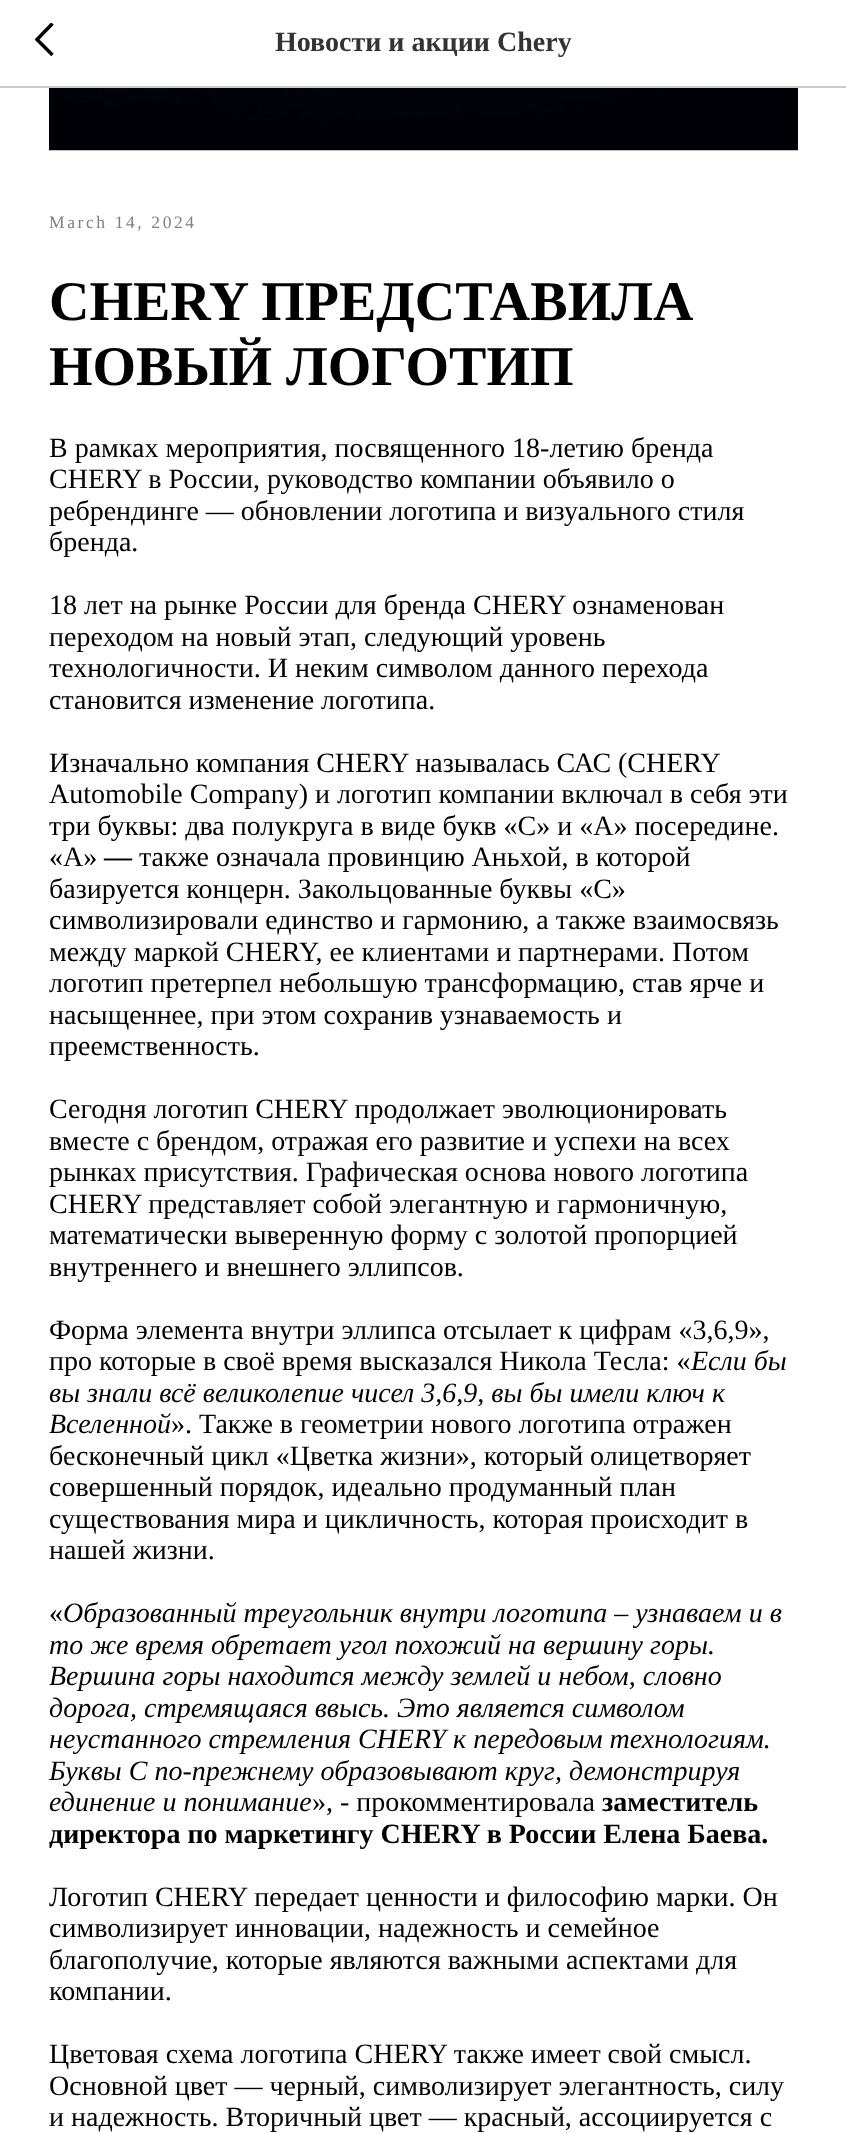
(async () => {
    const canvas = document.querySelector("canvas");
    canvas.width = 846;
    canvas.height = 2133;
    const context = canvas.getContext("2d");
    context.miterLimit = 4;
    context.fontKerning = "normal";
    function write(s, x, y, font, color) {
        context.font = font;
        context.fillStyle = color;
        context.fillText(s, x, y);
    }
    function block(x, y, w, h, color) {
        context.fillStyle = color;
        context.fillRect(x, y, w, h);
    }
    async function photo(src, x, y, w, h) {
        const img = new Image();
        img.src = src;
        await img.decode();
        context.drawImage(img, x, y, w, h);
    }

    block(0, 0, 846, 2133, "rgb(255, 255, 255)");
    block(0, 86, 846, 2, "rgb(204, 204, 204)");
    context.save();
    context.beginPath();
    context.rect(35, 23, 19, 35);
    context.clip();
    context.beginPath();
    context.moveTo(52.5, 55);
    context.lineTo(37, 39.5);
    context.lineTo(52.5, 23.5);
    context.strokeStyle = "rgb(0, 0, 0)";
    context.lineWidth = 3.5;
    context.stroke();
    context.restore();
    write("Новости и акции Chery", 275, 51, "bold 28px Liberation Serif", "rgb(51, 51, 51)");
    await photo("media/1.png", 49, 88, 749, 63);
    context.letterSpacing = "2.6px";
    write("March 14, 2024", 49, 228, "17.5px Liberation Serif", "rgb(128, 128, 128)");
    context.letterSpacing = "0px";
    write("CHERY ПРЕДСТАВИЛА", 49, 320, "bold 56px Liberation Serif", "rgb(0, 0, 0)");
    write("НОВЫЙ ЛОГОТИП", 49, 385, "bold 56px Liberation Serif", "rgb(0, 0, 0)");
    write("В рамках мероприятия, посвященного 18-летию бренда", 49, 457, "28px Liberation Serif", "rgb(0, 0, 0)");
    write("CHERY в России, руководство компании объявило о", 49, 488, "28px Liberation Serif", "rgb(0, 0, 0)");
    write("ребрендинге — обновлении логотипа и визуального стиля", 49, 520, "28px Liberation Serif", "rgb(0, 0, 0)");
    write("бренда.", 49, 551, "28px Liberation Serif", "rgb(0, 0, 0)");
    write("18 лет на рынке России для бренда CHERY ознаменован", 49, 614, "28px Liberation Serif", "rgb(0, 0, 0)");
    write("переходом на новый этап, следующий уровень", 49, 646, "28px Liberation Serif", "rgb(0, 0, 0)");
    write("технологичности. И неким символом данного перехода", 49, 677, "28px Liberation Serif", "rgb(0, 0, 0)");
    write("становится изменение логотипа.", 49, 709, "28px Liberation Serif", "rgb(0, 0, 0)");
    context.wordSpacing = "-0.25px";
    write("Изначально компания CHERY называлась САС (CHERY", 49, 772, "28px Liberation Serif", "rgb(0, 0, 0)");
    context.wordSpacing = "0px";
    write("Automobile Company) и логотип компании включал в себя эти", 49, 803, "28px Liberation Serif", "rgb(0, 0, 0)");
    write("три буквы: два полукруга в виде букв «С» и «А» посередине.", 49, 835, "28px Liberation Serif", "rgb(0, 0, 0)");
    write("«А»", 49, 866, "28px Liberation Serif", "rgb(0, 0, 0)");
    write("—", 104, 866, "bold 28px Liberation Serif", "rgb(0, 0, 0)");
    write("также означала провинцию Аньхой, в которой", 139, 866, "28px Liberation Serif", "rgb(0, 0, 0)");
    write("базируется концерн. Закольцованные буквы «С»", 49, 898, "28px Liberation Serif", "rgb(0, 0, 0)");
    write("символизировали единство и гармонию, а также взаимосвязь", 49, 929, "28px Liberation Serif", "rgb(0, 0, 0)");
    write("между маркой CHERY, ее клиентами и партнерами. Потом", 49, 961, "28px Liberation Serif", "rgb(0, 0, 0)");
    write("логотип претерпел небольшую трансформацию, став ярче и", 49, 992, "28px Liberation Serif", "rgb(0, 0, 0)");
    write("насыщеннее, при этом сохранив узнаваемость и", 49, 1024, "28px Liberation Serif", "rgb(0, 0, 0)");
    write("преемственность.", 49, 1055, "28px Liberation Serif", "rgb(0, 0, 0)");
    write("Сегодня логотип CHERY продолжает эволюционировать", 49, 1118, "28px Liberation Serif", "rgb(0, 0, 0)");
    write("вместе с брендом, отражая его развитие и успехи на всех", 49, 1150, "28px Liberation Serif", "rgb(0, 0, 0)");
    write("рынках присутствия. Графическая основа нового логотипа", 49, 1181, "28px Liberation Serif", "rgb(0, 0, 0)");
    write("CHERY представляет собой элегантную и гармоничную,", 49, 1213, "28px Liberation Serif", "rgb(0, 0, 0)");
    write("математически выверенную форму с золотой пропорцией", 49, 1244, "28px Liberation Serif", "rgb(0, 0, 0)");
    write("внутреннего и внешнего эллипсов.", 49, 1276, "28px Liberation Serif", "rgb(0, 0, 0)");
    write("Форма элемента внутри эллипса отсылает к цифрам «3,6,9»,", 49, 1339, "28px Liberation Serif", "rgb(0, 0, 0)");
    write("про которые в своё время высказался Никола Тесла: «", 49, 1370, "28px Liberation Serif", "rgb(0, 0, 0)");
    write("Если бы", 691, 1370, "italic 28px Liberation Serif", "rgb(0, 0, 0)");
    write("вы знали всё великолепие чисел 3,6,9, вы бы имели ключ к", 49, 1402, "italic 28px Liberation Serif", "rgb(0, 0, 0)");
    write("Вселенной", 49, 1433, "italic 28px Liberation Serif", "rgb(0, 0, 0)");
    write("». Также в геометрии нового логотипа отражен", 171, 1433, "28px Liberation Serif", "rgb(0, 0, 0)");
    write("бесконечный цикл «Цветка жизни», который олицетворяет", 49, 1465, "28px Liberation Serif", "rgb(0, 0, 0)");
    write("совершенный порядок, идеально продуманный план", 49, 1496, "28px Liberation Serif", "rgb(0, 0, 0)");
    write("существования мира и цикличность, которая происходит в", 49, 1528, "28px Liberation Serif", "rgb(0, 0, 0)");
    write("нашей жизни.", 49, 1559, "28px Liberation Serif", "rgb(0, 0, 0)");
    write("«", 49, 1622, "28px Liberation Serif", "rgb(0, 0, 0)");
    write("Образованный треугольник внутри логотипа – узнаваем и в", 63, 1622, "italic 28px Liberation Serif", "rgb(0, 0, 0)");
    write("то же время обретает угол похожий на вершину горы.", 49, 1654, "italic 28px Liberation Serif", "rgb(0, 0, 0)");
    write("Вершина горы находится между землей и небом, словно", 49, 1685, "italic 28px Liberation Serif", "rgb(0, 0, 0)");
    write("дорога, стремящаяся ввысь. Это является символом", 49, 1717, "italic 28px Liberation Serif", "rgb(0, 0, 0)");
    write("неустанного стремления CHERY к передовым технологиям.", 49, 1748, "italic 28px Liberation Serif", "rgb(0, 0, 0)");
    write("Буквы C по-прежнему образовывают круг, демонстрируя", 49, 1780, "italic 28px Liberation Serif", "rgb(0, 0, 0)");
    write("единение и понимание", 49, 1811, "italic 28px Liberation Serif", "rgb(0, 0, 0)");
    write("», - прокомментировала", 312, 1811, "28px Liberation Serif", "rgb(0, 0, 0)");
    write("заместитель", 602, 1811, "bold 28px Liberation Serif", "rgb(0, 0, 0)");
    write("директора по маркетингу CHERY в России Елена Баева.", 49, 1843, "bold 28px Liberation Serif", "rgb(0, 0, 0)");
    write("Логотип CHERY передает ценности и философию марки. Он", 49, 1906, "28px Liberation Serif", "rgb(0, 0, 0)");
    write("символизирует инновации, надежность и семейное", 49, 1937, "28px Liberation Serif", "rgb(0, 0, 0)");
    write("благополучие, которые являются важными аспектами для", 49, 1969, "28px Liberation Serif", "rgb(0, 0, 0)");
    write("компании.", 49, 2000, "28px Liberation Serif", "rgb(0, 0, 0)");
    write("Цветовая схема логотипа CHERY также имеет свой смысл.", 49, 2063, "28px Liberation Serif", "rgb(0, 0, 0)");
    write("Основной цвет — черный, символизирует элегантность, силу", 49, 2095, "28px Liberation Serif", "rgb(0, 0, 0)");
    write("и надежность. Вторичный цвет — красный, ассоциируется с", 49, 2126, "28px Liberation Serif", "rgb(0, 0, 0)");
})();
